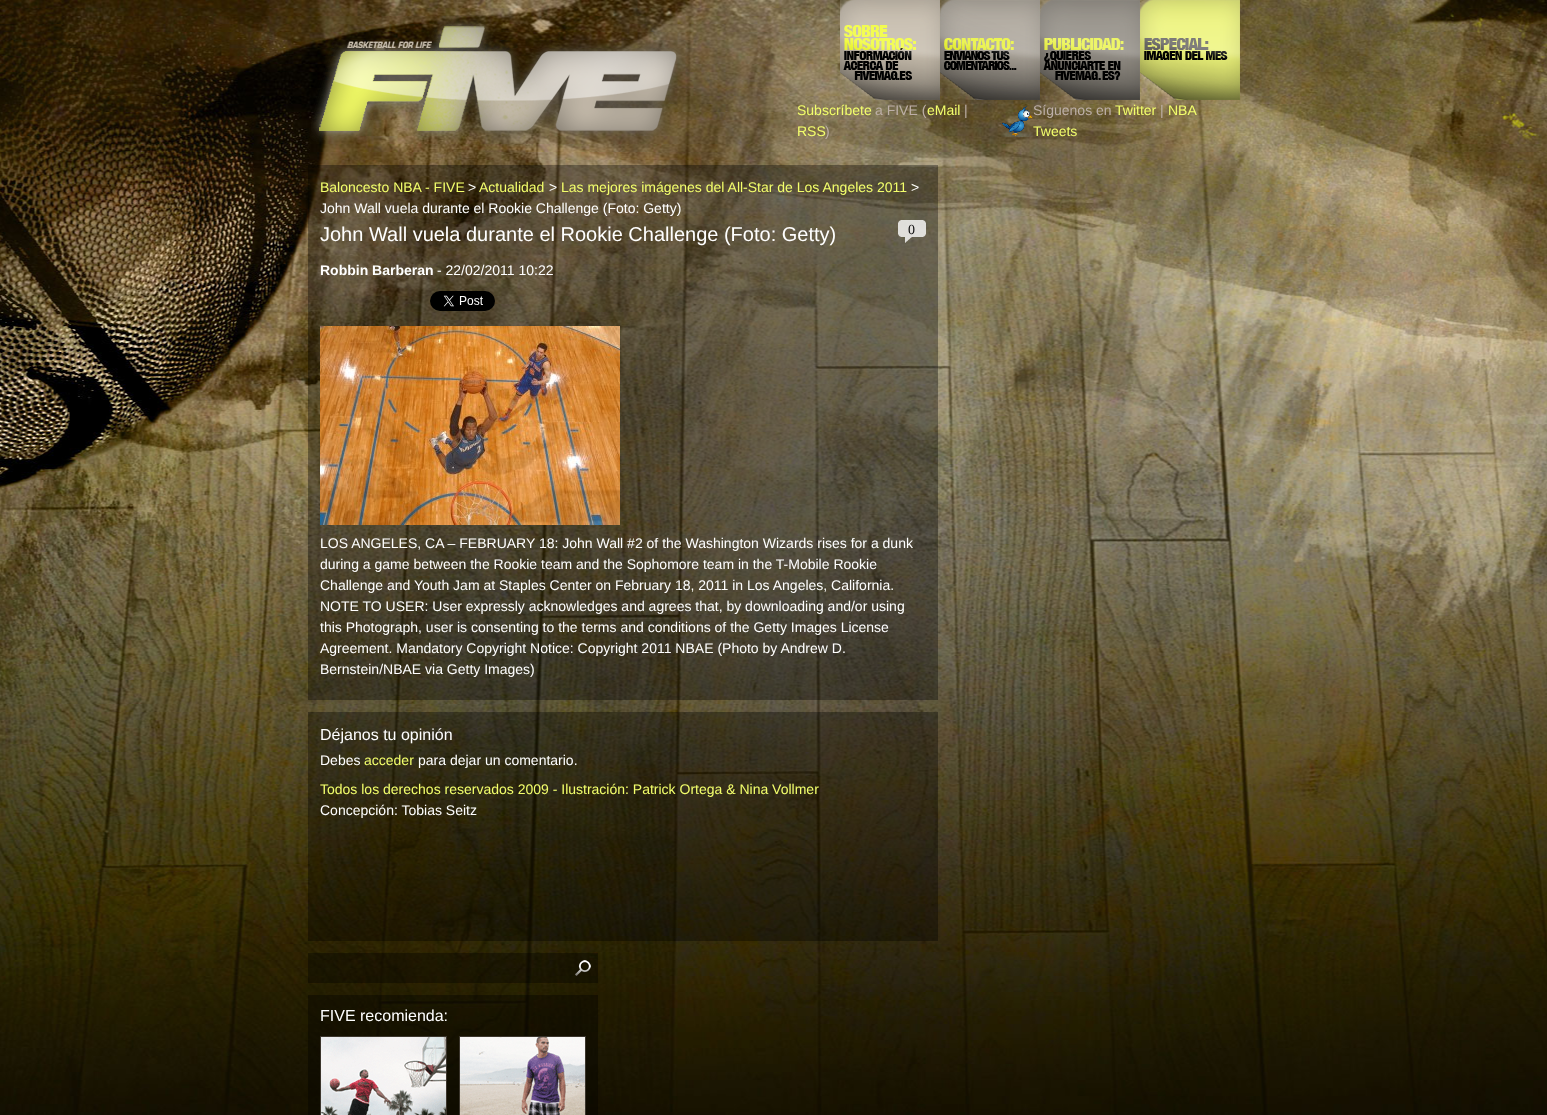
(async () => {
    const canvas = document.querySelector("canvas");
    canvas.width = 1547;
    canvas.height = 1115;
    const context = canvas.getContext("2d");
    context.miterLimit = 4;
    context.fontKerning = "normal";
    function write(s, x, y, font, color) {
        context.font = font;
        context.fillStyle = color;
        context.fillText(s, x, y);
    }
    function block(x, y, w, h, color) {
        context.fillStyle = color;
        context.fillRect(x, y, w, h);
    }
    async function photo(src, x, y, w, h) {
        const img = new Image();
        img.src = src;
        await img.decode();
        context.drawImage(img, x, y, w, h);
    }

    block(0, 0, 1547, 1115, "rgb(255, 255, 255)");
    await photo("media/1.png", 0, 0, 1547, 1115);
    await photo("media/2.png", 311, 15, 379, 133);
    await photo("media/3.png", 840, 0, 100, 100);
    await photo("media/4.png", 940, 0, 100, 100);
    await photo("media/5.png", 1040, 0, 100, 100);
    await photo("media/6.png", 1140, 0, 100, 100);
    write("Subscríbete", 797, 115, "14px Liberation Sans", "rgb(243, 255, 108)");
    write("a FIVE (", 875, 115, "14px Liberation Sans", "rgb(189, 175, 168)");
    write("eMail", 927, 115, "14px Liberation Sans", "rgb(243, 255, 108)");
    write("|", 964, 115, "14px Liberation Sans", "rgb(189, 175, 168)");
    write("RSS", 797, 136, "14px Liberation Sans", "rgb(243, 255, 108)");
    write(")", 825, 136, "14px Liberation Sans", "rgb(189, 175, 168)");
    await photo("media/7.png", 1001, 106, 32, 31);
    write("Síguenos en", 1033, 115, "14px Liberation Sans", "rgb(189, 175, 168)");
    write("Twitter", 1115, 115, "14px Liberation Sans", "rgb(243, 255, 108)");
    write("|", 1160, 115, "14px Liberation Sans", "rgb(189, 175, 168)");
    write("NBA", 1168, 115, "14px Liberation Sans", "rgb(243, 255, 108)");
    write("Tweets", 1033, 136, "14px Liberation Sans", "rgb(243, 255, 108)");
    block(308, 165, 630, 535, "rgba(0, 0, 0, 0.35)");
    write("Baloncesto NBA - FIVE", 320, 192, "14px Liberation Sans", "rgb(243, 255, 108)");
    write(">", 468, 192, "14px Liberation Sans", "rgb(255, 255, 255)");
    write("Actualidad", 479, 192, "14px Liberation Sans", "rgb(243, 255, 108)");
    write(">", 549, 192, "14px Liberation Sans", "rgb(255, 255, 255)");
    write("Las mejores imágenes del All-Star de Los Angeles 2011", 561, 192, "14px Liberation Sans", "rgb(243, 255, 108)");
    write(">", 911, 192, "14px Liberation Sans", "rgb(255, 255, 255)");
    write("John Wall vuela durante el Rookie Challenge (Foto: Getty)", 320, 213, "14px Liberation Sans", "rgb(255, 255, 255)");
    write("John Wall vuela durante el Rookie Challenge (Foto: Getty)", 320, 241, "20px Liberation Sans", "rgb(255, 255, 255)");
    await photo("media/8.png", 898, 220, 28, 23);
    write("0", 908, 234, "14px Liberation Serif", "rgb(13, 13, 13)");
    write("Robbin Barberan", 320, 275, "bold 14px Liberation Sans", "rgb(255, 255, 255)");
    write("- 22/02/2011 10:22", 437, 275, "14px Liberation Sans", "rgb(255, 255, 255)");
    await photo("media/9.png", 430, 291, 65, 20);
    await photo("media/10.png", 320, 326, 300, 199);
    write("LOS ANGELES, CA – FEBRUARY 18: John Wall #2 of the Washington Wizards rises for a dunk", 320, 548, "14px Liberation Sans", "rgb(255, 255, 255)");
    write("during a game between the Rookie team and the Sophomore team in the T-Mobile Rookie", 320, 569, "14px Liberation Sans", "rgb(255, 255, 255)");
    write("Challenge and Youth Jam at Staples Center on February 18, 2011 in Los Angeles, California.", 320, 590, "14px Liberation Sans", "rgb(255, 255, 255)");
    write("NOTE TO USER: User expressly acknowledges and agrees that, by downloading and/or using", 320, 611, "14px Liberation Sans", "rgb(255, 255, 255)");
    write("this Photograph, user is consenting to the terms and conditions of the Getty Images License", 320, 632, "14px Liberation Sans", "rgb(255, 255, 255)");
    write("Agreement. Mandatory Copyright Notice: Copyright 2011 NBAE (Photo by Andrew D.", 320, 653, "14px Liberation Sans", "rgb(255, 255, 255)");
    write("Bernstein/NBAE via Getty Images)", 320, 674, "14px Liberation Sans", "rgb(255, 255, 255)");
    block(308, 712, 630, 229, "rgba(0, 0, 0, 0.35)");
    write("Déjanos tu opinión", 320, 740, "16px Liberation Sans", "rgb(255, 255, 255)");
    write("Debes", 320, 765, "14px Liberation Sans", "rgb(255, 255, 255)");
    write("acceder", 364, 765, "14px Liberation Sans", "rgb(243, 255, 108)");
    write("para dejar un comentario.", 418, 765, "14px Liberation Sans", "rgb(255, 255, 255)");
    write("Todos los derechos reservados 2009 - Ilustración: Patrick Ortega & Nina Vollmer", 320, 794, "14px Liberation Sans", "rgb(243, 255, 108)");
    write("Concepción: Tobias Seitz", 320, 815, "14px Liberation Sans", "rgb(255, 255, 255)");
    block(308, 953, 290, 30, "rgba(0, 0, 0, 0.35)");
    await photo("media/11.png", 575, 960, 16, 16);
    block(308, 995, 290, 120, "rgba(0, 0, 0, 0.35)");
    write("FIVE recomienda:", 320, 1021, "16px Liberation Sans", "rgb(255, 255, 255)");
    context.strokeStyle = "rgb(59, 53, 44)";
    context.strokeRect(320.5, 1036.5, 126, 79);
    context.strokeRect(459.5, 1036.5, 126, 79);
    await photo("media/12.png", 321, 1037, 125, 78);
    await photo("media/13.png", 460, 1037, 125, 78);
})();
